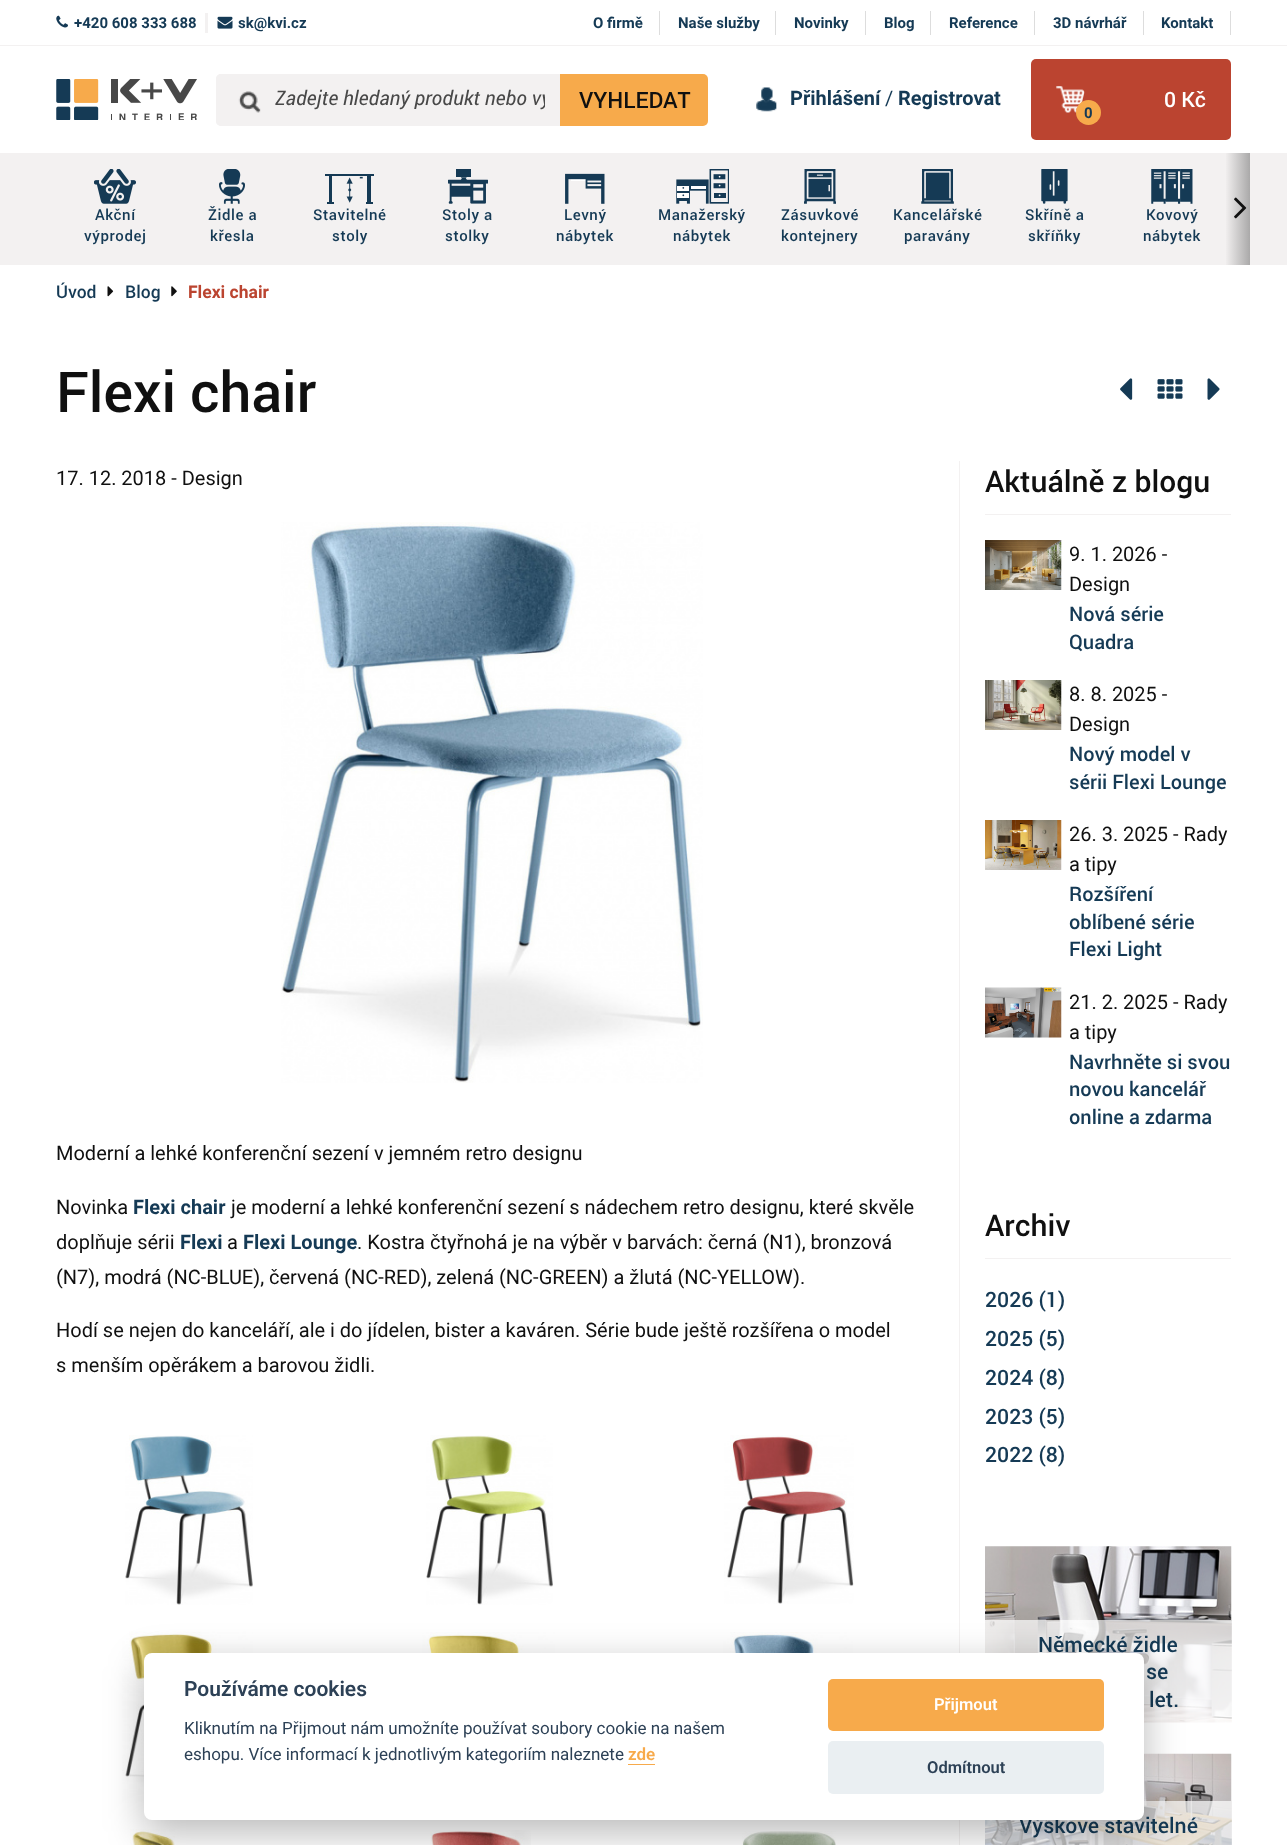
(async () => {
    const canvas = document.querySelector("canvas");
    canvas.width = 1287;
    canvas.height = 1845;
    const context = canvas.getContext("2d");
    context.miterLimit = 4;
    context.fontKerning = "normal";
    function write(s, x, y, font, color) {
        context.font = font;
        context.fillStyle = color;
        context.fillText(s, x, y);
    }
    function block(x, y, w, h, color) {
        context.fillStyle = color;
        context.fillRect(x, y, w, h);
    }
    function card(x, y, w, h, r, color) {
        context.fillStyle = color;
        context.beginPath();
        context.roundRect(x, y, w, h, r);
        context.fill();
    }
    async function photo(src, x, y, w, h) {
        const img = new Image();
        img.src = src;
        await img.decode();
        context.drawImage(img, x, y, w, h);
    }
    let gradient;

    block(0, 0, 1287, 1845, "rgb(255, 255, 255)");
    block(0, 45, 1287, 1, "rgb(243, 241, 241)");
    block(205, 13, 3, 20, "rgb(243, 241, 241)");
    await photo("media/1.png", 56, 15, 12, 13);
    write("+420 608 333 688", 74, 28, "bold 15px Roboto", "rgb(21, 58, 85)");
    await photo("media/2.png", 217, 16, 16, 13);
    write("sk@kvi.cz", 238, 28, "bold 15px Roboto", "rgb(21, 58, 85)");
    block(659, 11, 1, 24, "rgb(221, 221, 221)");
    write("O firmě", 593, 28, "bold 15px Roboto", "rgb(21, 58, 85)");
    block(775, 11, 1, 24, "rgb(221, 221, 221)");
    write("Naše služby", 678, 28, "bold 15px Roboto", "rgb(21, 58, 85)");
    block(865, 11, 1, 24, "rgb(221, 221, 221)");
    write("Novinky", 794, 28, "bold 15px Roboto", "rgb(21, 58, 85)");
    block(930, 11, 1, 24, "rgb(221, 221, 221)");
    write("Blog", 884, 28, "bold 15px Roboto", "rgb(21, 58, 85)");
    block(1034, 11, 1, 24, "rgb(221, 221, 221)");
    write("Reference", 949, 28, "bold 15px Roboto", "rgb(21, 58, 85)");
    block(1143, 11, 1, 24, "rgb(221, 221, 221)");
    write("3D návrhář", 1053, 28, "bold 15px Roboto", "rgb(21, 58, 85)");
    block(1230, 11, 1, 24, "rgb(221, 221, 221)");
    write("Kontakt", 1161, 28, "bold 15px Roboto", "rgb(21, 58, 85)");
    await photo("media/3.png", 56, 79, 141, 41);
    context.fillStyle = "rgb(243, 241, 241)";
    context.beginPath();
    context.roundRect(216, 74, 344, 52, [5, 0, 0, 5]);
    context.fill();
    await photo("media/4.png", 238, 91, 23, 22);
    context.beginPath();
    context.roundRect(217.5, 75.5, 341, 49, [3.5, 0, 0, 3.5]);
    context.strokeStyle = "rgb(243, 241, 241)";
    context.lineWidth = 3;
    context.stroke();
    context.save();
    context.beginPath();
    context.rect(275, 84, 270, 26);
    context.clip();
    write("Zadejte hledaný produkt nebo vý", 275, 105, "italic 20px Roboto", "rgb(72, 72, 72)");
    context.restore();
    context.fillStyle = "rgb(247, 170, 75)";
    context.beginPath();
    context.roundRect(560, 74, 148, 52, [0, 5, 5, 0]);
    context.fill();
    write("VYHLEDAT", 579, 108, "500 22.5px Roboto", "rgb(16, 16, 16)");
    await photo("media/5.png", 756, 87, 21, 25);
    write("Přihlášení", 790, 105, "bold 20px Roboto", "rgb(21, 58, 85)");
    write("/", 885, 105, "20px Roboto", "rgb(21, 58, 85)");
    write("Registrovat", 898, 105, "bold 20px Roboto", "rgb(21, 58, 85)");
    card(1031, 59, 200, 81, 5, "rgb(187, 68, 48)");
    write("0 Kč", 1164, 107, "500 21.25px Roboto", "rgb(255, 255, 255)");
    await photo("media/6.png", 1056, 86, 29, 27);
    context.fillStyle = "rgb(247, 170, 75)";
    context.beginPath();
    context.arc(1088.5, 112.5, 12.5, 0, Math.PI * 2);
    context.fill();
    write("0", 1084, 118, "bold 15px Roboto", "rgb(21, 58, 85)");
    block(0, 153, 1287, 112, "rgb(243, 241, 241)");
    await photo("media/7.png", 94, 169, 42, 35);
    context.letterSpacing = "0.6px";
    write("Akční", 95, 220, "500 15px Roboto", "rgb(21, 58, 85)");
    write("výprodej", 84, 241, "500 15px Roboto", "rgb(21, 58, 85)");
    await photo("media/8.png", 219, 169, 26, 35);
    write("Židle a", 208, 220, "500 15px Roboto", "rgb(21, 58, 85)");
    write("křesla", 210, 241, "500 15px Roboto", "rgb(21, 58, 85)");
    await photo("media/9.png", 325, 174, 49, 30);
    write("Stavitelné", 313, 220, "500 15px Roboto", "rgb(21, 58, 85)");
    write("stoly", 332, 241, "500 15px Roboto", "rgb(21, 58, 85)");
    await photo("media/10.png", 448, 169, 40, 35);
    write("Stoly a", 442, 220, "500 15px Roboto", "rgb(21, 58, 85)");
    write("stolky", 445, 241, "500 15px Roboto", "rgb(21, 58, 85)");
    await photo("media/11.png", 565, 173, 40, 31);
    write("Levný", 564, 220, "500 15px Roboto", "rgb(21, 58, 85)");
    write("nábytek", 556, 241, "500 15px Roboto", "rgb(21, 58, 85)");
    await photo("media/12.png", 676, 169, 53, 35);
    write("Manažerský", 658, 220, "500 15px Roboto", "rgb(21, 58, 85)");
    write("nábytek", 673, 241, "500 15px Roboto", "rgb(21, 58, 85)");
    await photo("media/13.png", 804, 169, 32, 35);
    write("Zásuvkové", 781, 220, "500 15px Roboto", "rgb(21, 58, 85)");
    write("kontejnery", 781, 241, "500 15px Roboto", "rgb(21, 58, 85)");
    await photo("media/14.png", 921, 169, 33, 35);
    write("Kancelářské", 893, 220, "500 15px Roboto", "rgb(21, 58, 85)");
    write("paravány", 904, 241, "500 15px Roboto", "rgb(21, 58, 85)");
    await photo("media/15.png", 1041, 169, 27, 35);
    write("Skříně a", 1025, 220, "500 15px Roboto", "rgb(21, 58, 85)");
    write("skříňky", 1028, 241, "500 15px Roboto", "rgb(21, 58, 85)");
    await photo("media/16.png", 1151, 169, 42, 35);
    write("Kovový", 1146, 220, "500 15px Roboto", "rgb(21, 58, 85)");
    write("nábytek", 1143, 241, "500 15px Roboto", "rgb(21, 58, 85)");
    gradient = context.createLinearGradient(1225, 209, 1250, 209);
    gradient.addColorStop(0, "rgb(243, 241, 241)");
    gradient.addColorStop(1, "rgb(170, 169, 169)");
    context.fillStyle = gradient;
    context.fillRect(1226, 153, 24, 112);
    await photo("media/17.png", 1234, 197, 13, 22);
    context.letterSpacing = "0px";
    write("Úvod", 56, 298, "500 17.5px Roboto", "rgb(21, 58, 85)");
    await photo("media/18.png", 107, 286, 7, 11);
    write("Blog", 125, 298, "500 17.5px Roboto", "rgb(21, 58, 85)");
    await photo("media/19.png", 171, 286, 6, 11);
    write("Flexi chair", 188, 298, "bold 17.5px Roboto", "rgb(187, 68, 48)");
    write("Flexi chair", 56, 412, "500 56.25px Roboto", "rgb(16, 16, 16)");
    await photo("media/20.png", 1120, 378, 13, 22);
    await photo("media/21.png", 1157, 379, 26, 20);
    await photo("media/22.png", 1207, 378, 13, 22);
    write("17. 12. 2018 - Design", 56, 485, "20px Roboto", "rgb(16, 16, 16)");
    await photo("media/23.png", 281, 522, 422, 561);
    write("Moderní a lehké konferenční sezení v jemném retro designu", 56, 1160, "20px Roboto", "rgb(16, 16, 16)");
    write("Novinka", 56, 1214, "20px Roboto", "rgb(16, 16, 16)");
    write("Flexi chair", 133, 1214, "bold 20px Roboto", "rgb(21, 58, 85)");
    write("je moderní a lehké konferenční sezení s nádechem retro designu, které skvěle", 231, 1214, "20px Roboto", "rgb(16, 16, 16)");
    write("doplňuje sérii", 56, 1249, "20px Roboto", "rgb(16, 16, 16)");
    write("Flexi", 180, 1249, "bold 20px Roboto", "rgb(21, 58, 85)");
    write("a", 227, 1249, "20px Roboto", "rgb(16, 16, 16)");
    write("Flexi Lounge", 243, 1249, "bold 20px Roboto", "rgb(21, 58, 85)");
    write(". Kostra čtyřnohá je na výběr v barvách: černá (N1), bronzová", 357, 1249, "20px Roboto", "rgb(16, 16, 16)");
    write("(N7), modrá (NC-BLUE), červená (NC-RED), zelená (NC-GREEN) a žlutá (NC-YELLOW).", 56, 1284, "20px Roboto", "rgb(16, 16, 16)");
    write("Hodí se nejen do kanceláří, ale i do jídelen, bister a kaváren. Série bude ještě rozšířena o model", 56, 1337, "20px Roboto", "rgb(16, 16, 16)");
    write("s menším opěrákem a barovou židli.", 56, 1372, "20px Roboto", "rgb(16, 16, 16)");
    await photo("media/24.png", 125, 1435, 128, 170);
    await photo("media/25.png", 426, 1435, 127, 170);
    await photo("media/26.png", 724, 1435, 130, 169);
    await photo("media/27.png", 122, 1631, 131, 172);
    await photo("media/28.png", 422, 1632, 133, 21);
    await photo("media/29.png", 723, 1632, 130, 21);
    await photo("media/30.png", 130, 1829, 45, 16);
    await photo("media/31.png", 430, 1830, 101, 15);
    await photo("media/32.png", 742, 1831, 94, 14);
    block(959, 461, 1, 1384, "rgb(243, 241, 241)");
    block(985, 514, 246, 1, "rgb(243, 241, 241)");
    write("Aktuálně z blogu", 985, 492, "500 30px Roboto", "rgb(16, 16, 16)");
    await photo("media/33.png", 985, 540, 77, 50);
    write("9. 1. 2026 -", 1069, 561, "20px Roboto", "rgb(16, 16, 16)");
    write("Design", 1069, 591, "20px Roboto", "rgb(16, 16, 16)");
    write("Nová série", 1069, 621, "500 20px Roboto", "rgb(21, 58, 85)");
    write("Quadra", 1069, 649, "500 20px Roboto", "rgb(21, 58, 85)");
    await photo("media/34.png", 985, 680, 77, 50);
    write("8. 8. 2025 -", 1069, 701, "20px Roboto", "rgb(16, 16, 16)");
    write("Design", 1069, 731, "20px Roboto", "rgb(16, 16, 16)");
    write("Nový model v", 1069, 761, "500 20px Roboto", "rgb(21, 58, 85)");
    write("sérii Flexi Lounge", 1069, 789, "500 20px Roboto", "rgb(21, 58, 85)");
    await photo("media/35.png", 985, 820, 77, 50);
    write("26. 3. 2025 - Rady", 1069, 841, "20px Roboto", "rgb(16, 16, 16)");
    write("a tipy", 1069, 871, "20px Roboto", "rgb(16, 16, 16)");
    write("Rozšíření", 1069, 901, "500 20px Roboto", "rgb(21, 58, 85)");
    write("oblíbené série", 1069, 929, "500 20px Roboto", "rgb(21, 58, 85)");
    write("Flexi Light", 1069, 956, "500 20px Roboto", "rgb(21, 58, 85)");
    await photo("media/36.png", 985, 987, 77, 51);
    write("21. 2. 2025 - Rady", 1069, 1009, "20px Roboto", "rgb(16, 16, 16)");
    write("a tipy", 1069, 1039, "20px Roboto", "rgb(16, 16, 16)");
    write("Navrhněte si svou", 1069, 1069, "500 20px Roboto", "rgb(21, 58, 85)");
    write("novou kancelář", 1069, 1096, "500 20px Roboto", "rgb(21, 58, 85)");
    write("online a zdarma", 1069, 1124, "500 20px Roboto", "rgb(21, 58, 85)");
    block(985, 1258, 246, 1, "rgb(243, 241, 241)");
    write("Archiv", 985, 1236, "500 30px Roboto", "rgb(16, 16, 16)");
    write("2026 (1)", 985, 1307, "500 21.25px Roboto", "rgb(21, 58, 85)");
    write("2025 (5)", 985, 1346, "500 21.25px Roboto", "rgb(21, 58, 85)");
    write("2024 (8)", 985, 1385, "500 21.25px Roboto", "rgb(21, 58, 85)");
    write("2023 (5)", 985, 1424, "500 21.25px Roboto", "rgb(21, 58, 85)");
    write("2022 (8)", 985, 1462, "500 21.25px Roboto", "rgb(21, 58, 85)");
    await photo("media/37.png", 985, 1546, 247, 177);
    block(985, 1620, 246, 103, "rgba(255, 255, 255, 0.7)");
    write("Německé židle", 1038, 1652, "500 21.25px Roboto", "rgb(21, 58, 85)");
    write("se", 1146, 1679, "500 21.25px Roboto", "rgb(21, 58, 85)");
    write("let.", 1149, 1707, "500 21.25px Roboto", "rgb(21, 58, 85)");
    await photo("media/38.png", 985, 1753, 247, 92);
    block(985, 1801, 246, 44, "rgba(255, 255, 255, 0.7)");
    write("Výškově stavitelné", 1019, 1833, "500 21.25px Roboto", "rgb(21, 58, 85)");
    context.fillStyle = "rgba(2, 2, 3, 0.28)";
    context.filter = "blur(19px)";
    context.beginPath();
    context.roundRect(144, 1665, 1000, 168, 8);
    context.fill();
    context.filter = "none";
    card(144, 1653, 1000, 167, 8, "rgb(255, 255, 255)");
    write("Používáme cookies", 184, 1696, "600 21px Roboto", "rgb(45, 65, 86)");
    write("Kliknutím na Přijmout nám umožníte používat soubory cookie na našem", 184, 1734, "17px 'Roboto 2'", "rgb(45, 65, 86)");
    write("eshopu. Více informací k jednotlivým kategoriím naleznete", 184, 1760, "17px 'Roboto 2'", "rgb(45, 65, 86)");
    write("zde", 628, 1760, "600 17px Roboto", "rgb(247, 170, 75)");
    block(628, 1764, 27, 1, "rgb(247, 170, 75)");
    card(828, 1679, 276, 52, 5, "rgb(247, 170, 75)");
    write("Přijmout", 934, 1710, "600 16.5px Roboto", "rgb(255, 255, 255)");
    card(828, 1741, 276, 53, 5, "rgb(234, 239, 242)");
    write("Odmítnout", 927, 1773, "600 16.5px Roboto", "rgb(45, 65, 86)");
})();
